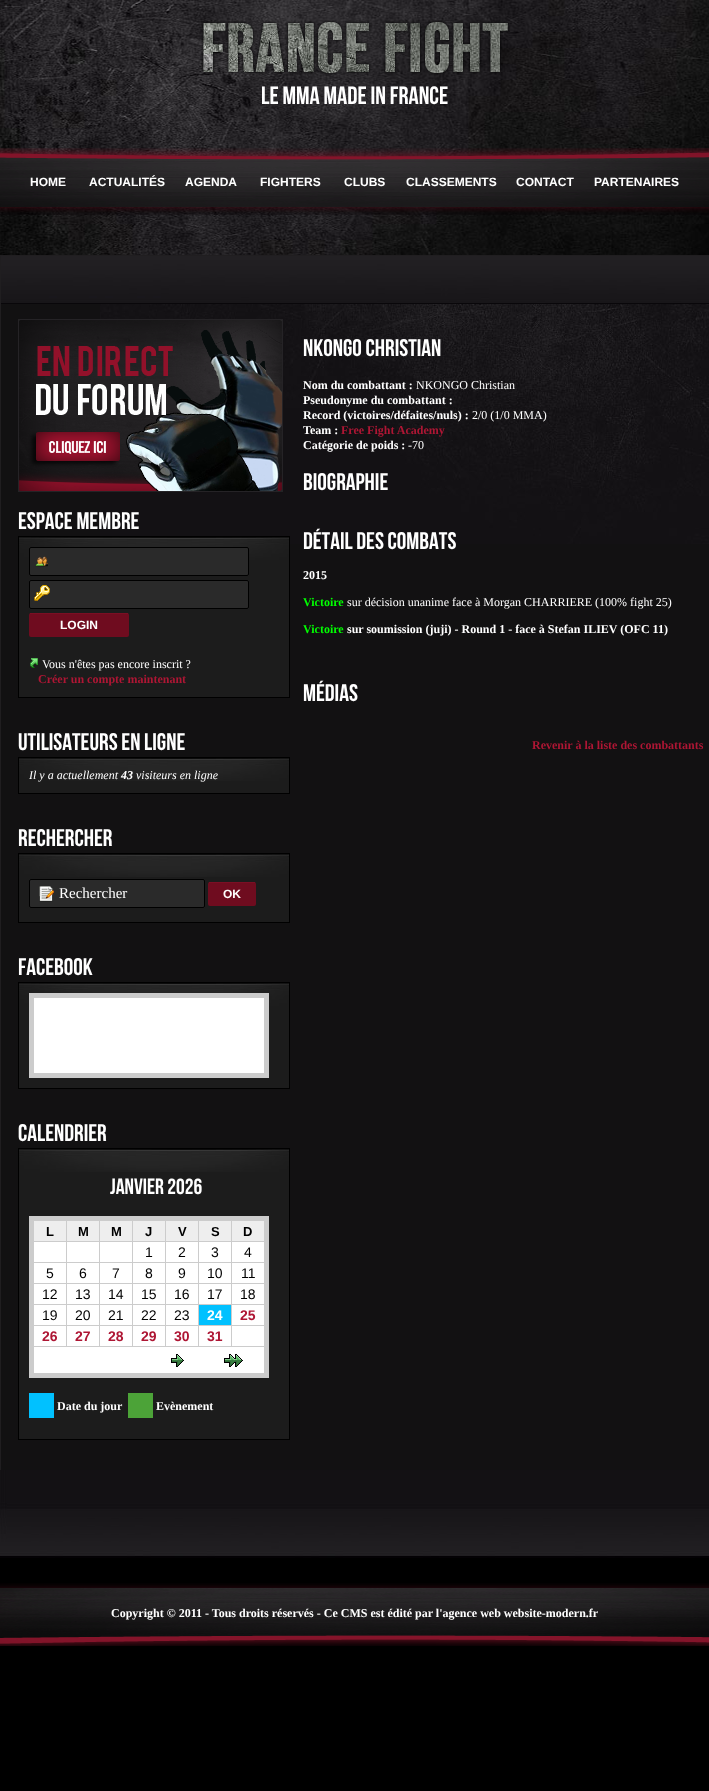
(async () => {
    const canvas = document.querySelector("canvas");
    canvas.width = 709;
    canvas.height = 1791;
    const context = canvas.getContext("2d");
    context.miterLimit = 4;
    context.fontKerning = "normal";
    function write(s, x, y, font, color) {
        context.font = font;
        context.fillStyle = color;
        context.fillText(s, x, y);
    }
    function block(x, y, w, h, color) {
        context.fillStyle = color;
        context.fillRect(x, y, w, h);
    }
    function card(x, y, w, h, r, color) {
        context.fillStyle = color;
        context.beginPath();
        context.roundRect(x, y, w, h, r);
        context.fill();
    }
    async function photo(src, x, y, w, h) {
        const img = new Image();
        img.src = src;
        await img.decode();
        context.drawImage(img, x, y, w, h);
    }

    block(0, 0, 709, 1791, "rgb(0, 0, 0)");
    await photo("media/1.png", 0, 0, 709, 255);
    await photo("media/2.png", 201, 20, 309, 55);
    write("LE MMA MADE IN FRANCE", 261, 104, "25px Bebas Neue", "rgb(255, 255, 255)");
    await photo("media/3.png", 0, 148, 709, 67);
    write("HOME", 30, 186, "bold 12px Liberation Sans", "rgb(255, 255, 255)");
    write("ACTUALITÉS", 89, 186, "bold 12px Liberation Sans", "rgb(255, 255, 255)");
    write("AGENDA", 185, 186, "bold 12px Liberation Sans", "rgb(255, 255, 255)");
    write("FIGHTERS", 260, 186, "bold 12px Liberation Sans", "rgb(255, 255, 255)");
    write("CLUBS", 344, 186, "bold 12px Liberation Sans", "rgb(255, 255, 255)");
    write("CLASSEMENTS", 406, 186, "bold 12px Liberation Sans", "rgb(255, 255, 255)");
    write("CONTACT", 516, 186, "bold 12px Liberation Sans", "rgb(255, 255, 255)");
    write("PARTENAIRES", 594, 186, "bold 12px Liberation Sans", "rgb(255, 255, 255)");
    block(1, 304, 708, 1166, "rgb(18, 17, 18)");
    await photo("media/4.png", 1, 256, 708, 48);
    context.strokeStyle = "rgb(32, 30, 32)";
    context.strokeRect(0.5, 255.5, 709, 1216);
    await photo("media/5.png", 100, 304, 609, 240);
    await photo("media/6.png", 18, 319, 265, 173);
    write("ESPACE MEMBRE", 18, 529, "24px Bebas Neue", "rgb(255, 255, 255)");
    block(19, 560, 270, 137, "rgb(28, 28, 28)");
    await photo("media/7.png", 19, 537, 270, 23);
    context.strokeStyle = "rgb(0, 0, 0)";
    context.strokeRect(18.5, 536.5, 271, 161);
    card(29, 547, 220, 29, 2, "rgb(42, 42, 42)");
    await photo("media/8.png", 35, 556, 13, 11);
    context.beginPath();
    context.roundRect(29.5, 547.5, 219, 28, 1.5);
    context.stroke();
    card(29, 580, 220, 29, 2, "rgb(42, 42, 42)");
    await photo("media/9.png", 34, 585, 16, 16);
    context.beginPath();
    context.roundRect(29.5, 580.5, 219, 28, 1.5);
    context.stroke();
    card(29, 613, 100, 24, 2, "rgb(111, 12, 31)");
    block(30, 613, 98, 1, "rgb(123, 15, 36)");
    write("LOGIN", 60, 629, "bold 12px Liberation Sans", "rgb(255, 255, 255)");
    await photo("media/10.png", 30, 658, 8, 10);
    write("Vous n'êtes pas encore inscrit ?", 42, 668, "12px Liberation Serif", "rgb(255, 255, 255)");
    write("Créer un compte maintenant", 38, 683, "bold 12px Liberation Serif", "rgb(174, 22, 52)");
    write("UTILISATEURS EN LIGNE", 18, 750, "24px Bebas Neue", "rgb(255, 255, 255)");
    block(19, 781, 270, 12, "rgb(28, 28, 28)");
    await photo("media/7.png", 19, 758, 270, 23);
    context.strokeRect(18.5, 757.5, 271, 36);
    write("Il y a actuellement", 29, 779, "italic 12px Liberation Serif", "rgb(255, 255, 255)");
    write("43", 121, 779, "italic bold 12px Liberation Serif", "rgb(255, 255, 255)");
    write("visiteurs en ligne", 136, 779, "italic 12px Liberation Serif", "rgb(255, 255, 255)");
    write("RECHERCHER", 18, 846, "24px Bebas Neue", "rgb(255, 255, 255)");
    block(19, 877, 270, 45, "rgb(28, 28, 28)");
    await photo("media/7.png", 19, 854, 270, 23);
    context.strokeRect(18.5, 853.5, 271, 69);
    card(29, 879, 176, 29, 2, "rgb(42, 42, 42)");
    await photo("media/11.png", 39, 886, 15, 16);
    context.beginPath();
    context.roundRect(29.5, 879.5, 175, 28, 1.5);
    context.stroke();
    write("Rechercher", 59, 898, "15px Liberation Serif", "rgb(255, 255, 255)");
    card(208, 882, 48, 24, 2, "rgb(111, 12, 31)");
    block(209, 882, 46, 1, "rgb(123, 15, 36)");
    write("OK", 223, 898, "bold 12px Liberation Sans", "rgb(255, 255, 255)");
    write("FACEBOOK", 18, 975, "24px Bebas Neue", "rgb(255, 255, 255)");
    block(19, 1006, 270, 82, "rgb(28, 28, 28)");
    await photo("media/7.png", 19, 983, 270, 23);
    context.strokeRect(18.5, 982.5, 271, 106);
    context.fillStyle = "rgb(255, 255, 255)";
    context.beginPath();
    context.rect(31.5, 995.5, 235, 80);
    context.fill();
    context.strokeStyle = "rgb(204, 204, 204)";
    context.lineWidth = 5;
    context.stroke();
    write("CALENDRIER", 18, 1141, "24px Bebas Neue", "rgb(255, 255, 255)");
    block(19, 1172, 270, 267, "rgb(28, 28, 28)");
    await photo("media/7.png", 19, 1149, 270, 23);
    context.strokeStyle = "rgb(0, 0, 0)";
    context.lineWidth = 1;
    context.strokeRect(18.5, 1148.5, 271, 291);
    write("Janvier 2026", 110, 1194, "22px Bebas Neue", "rgb(255, 255, 255)");
    block(29, 1216, 240, 162, "rgb(204, 204, 204)");
    block(34, 1221, 32, 20, "rgb(238, 238, 238)");
    write("L", 46, 1236, "bold 13px Liberation Sans", "rgb(0, 0, 0)");
    block(67, 1221, 32, 20, "rgb(238, 238, 238)");
    write("M", 78, 1236, "bold 13px Liberation Sans", "rgb(0, 0, 0)");
    block(100, 1221, 32, 20, "rgb(238, 238, 238)");
    write("M", 111, 1236, "bold 13px Liberation Sans", "rgb(0, 0, 0)");
    block(133, 1221, 32, 20, "rgb(238, 238, 238)");
    write("J", 145, 1236, "bold 13px Liberation Sans", "rgb(0, 0, 0)");
    block(166, 1221, 32, 20, "rgb(238, 238, 238)");
    write("V", 178, 1236, "bold 13px Liberation Sans", "rgb(0, 0, 0)");
    block(199, 1221, 32, 20, "rgb(238, 238, 238)");
    write("S", 211, 1236, "bold 13px Liberation Sans", "rgb(0, 0, 0)");
    block(232, 1221, 32, 20, "rgb(238, 238, 238)");
    write("D", 243, 1236, "bold 13px Liberation Sans", "rgb(0, 0, 0)");
    block(34, 1242, 32, 20, "rgb(255, 255, 255)");
    block(67, 1242, 32, 20, "rgb(255, 255, 255)");
    block(100, 1242, 32, 20, "rgb(255, 255, 255)");
    block(133, 1242, 32, 20, "rgb(255, 255, 255)");
    write("1", 145, 1257, "14px Liberation Sans", "rgb(0, 0, 0)");
    block(166, 1242, 32, 20, "rgb(255, 255, 255)");
    write("2", 178, 1257, "14px Liberation Sans", "rgb(0, 0, 0)");
    block(199, 1242, 32, 20, "rgb(255, 255, 255)");
    write("3", 211, 1257, "14px Liberation Sans", "rgb(0, 0, 0)");
    block(232, 1242, 32, 20, "rgb(255, 255, 255)");
    write("4", 244, 1257, "14px Liberation Sans", "rgb(0, 0, 0)");
    block(34, 1263, 32, 20, "rgb(255, 255, 255)");
    write("5", 46, 1278, "14px Liberation Sans", "rgb(0, 0, 0)");
    block(67, 1263, 32, 20, "rgb(255, 255, 255)");
    write("6", 79, 1278, "14px Liberation Sans", "rgb(0, 0, 0)");
    block(100, 1263, 32, 20, "rgb(255, 255, 255)");
    write("7", 112, 1278, "14px Liberation Sans", "rgb(0, 0, 0)");
    block(133, 1263, 32, 20, "rgb(255, 255, 255)");
    write("8", 145, 1278, "14px Liberation Sans", "rgb(0, 0, 0)");
    block(166, 1263, 32, 20, "rgb(255, 255, 255)");
    write("9", 178, 1278, "14px Liberation Sans", "rgb(0, 0, 0)");
    block(199, 1263, 32, 20, "rgb(255, 255, 255)");
    write("10", 207, 1278, "14px Liberation Sans", "rgb(0, 0, 0)");
    block(232, 1263, 32, 20, "rgb(255, 255, 255)");
    write("11", 241, 1278, "14px Liberation Sans", "rgb(0, 0, 0)");
    block(34, 1284, 32, 20, "rgb(255, 255, 255)");
    write("12", 42, 1299, "14px Liberation Sans", "rgb(0, 0, 0)");
    block(67, 1284, 32, 20, "rgb(255, 255, 255)");
    write("13", 75, 1299, "14px Liberation Sans", "rgb(0, 0, 0)");
    block(100, 1284, 32, 20, "rgb(255, 255, 255)");
    write("14", 108, 1299, "14px Liberation Sans", "rgb(0, 0, 0)");
    block(133, 1284, 32, 20, "rgb(255, 255, 255)");
    write("15", 141, 1299, "14px Liberation Sans", "rgb(0, 0, 0)");
    block(166, 1284, 32, 20, "rgb(255, 255, 255)");
    write("16", 174, 1299, "14px Liberation Sans", "rgb(0, 0, 0)");
    block(199, 1284, 32, 20, "rgb(255, 255, 255)");
    write("17", 207, 1299, "14px Liberation Sans", "rgb(0, 0, 0)");
    block(232, 1284, 32, 20, "rgb(255, 255, 255)");
    write("18", 240, 1299, "14px Liberation Sans", "rgb(0, 0, 0)");
    block(34, 1305, 32, 20, "rgb(255, 255, 255)");
    write("19", 42, 1320, "14px Liberation Sans", "rgb(0, 0, 0)");
    block(67, 1305, 32, 20, "rgb(255, 255, 255)");
    write("20", 75, 1320, "14px Liberation Sans", "rgb(0, 0, 0)");
    block(100, 1305, 32, 20, "rgb(255, 255, 255)");
    write("21", 108, 1320, "14px Liberation Sans", "rgb(0, 0, 0)");
    block(133, 1305, 32, 20, "rgb(255, 255, 255)");
    write("22", 141, 1320, "14px Liberation Sans", "rgb(0, 0, 0)");
    block(166, 1305, 32, 20, "rgb(255, 255, 255)");
    write("23", 174, 1320, "14px Liberation Sans", "rgb(0, 0, 0)");
    block(199, 1305, 32, 20, "rgb(1, 193, 255)");
    write("24", 207, 1320, "bold 14px Liberation Sans", "rgb(255, 255, 255)");
    block(232, 1305, 32, 20, "rgb(255, 255, 255)");
    write("25", 240, 1320, "bold 14px Liberation Sans", "rgb(174, 22, 52)");
    block(34, 1326, 32, 20, "rgb(255, 255, 255)");
    write("26", 42, 1341, "bold 14px Liberation Sans", "rgb(174, 22, 52)");
    block(67, 1326, 32, 20, "rgb(255, 255, 255)");
    write("27", 75, 1341, "bold 14px Liberation Sans", "rgb(174, 22, 52)");
    block(100, 1326, 32, 20, "rgb(255, 255, 255)");
    write("28", 108, 1341, "bold 14px Liberation Sans", "rgb(174, 22, 52)");
    block(133, 1326, 32, 20, "rgb(255, 255, 255)");
    write("29", 141, 1341, "bold 14px Liberation Sans", "rgb(174, 22, 52)");
    block(166, 1326, 32, 20, "rgb(255, 255, 255)");
    write("30", 174, 1341, "bold 14px Liberation Sans", "rgb(174, 22, 52)");
    block(199, 1326, 32, 20, "rgb(255, 255, 255)");
    write("31", 207, 1341, "bold 14px Liberation Sans", "rgb(174, 22, 52)");
    block(232, 1326, 32, 20, "rgb(255, 255, 255)");
    block(34, 1347, 230, 26, "rgb(255, 255, 255)");
    await photo("media/12.png", 171, 1354, 13, 13);
    await photo("media/13.png", 224, 1354, 19, 13);
    block(29, 1393, 25, 25, "rgb(1, 193, 255)");
    write("Date du jour", 57, 1410, "bold 12px Liberation Serif", "rgb(255, 255, 255)");
    block(128, 1393, 25, 25, "rgb(76, 163, 56)");
    write("Evènement", 156, 1410, "bold 12px Liberation Serif", "rgb(255, 255, 255)");
    write("NKONGO CHRISTIAN", 303, 356, "24px Bebas Neue", "rgb(255, 255, 255)");
    write("Nom du combattant :", 303, 389, "bold 12px Liberation Serif", "rgb(255, 255, 255)");
    write("NKONGO Christian", 416, 389, "12px Liberation Serif", "rgb(255, 255, 255)");
    write("Pseudonyme du combattant :", 303, 404, "bold 12px Liberation Serif", "rgb(255, 255, 255)");
    write("Record (victoires/défaites/nuls) :", 303, 419, "bold 12px Liberation Serif", "rgb(255, 255, 255)");
    write("2/0 (1/0 MMA)", 472, 419, "12px Liberation Serif", "rgb(255, 255, 255)");
    write("Team :", 303, 434, "bold 12px Liberation Serif", "rgb(255, 255, 255)");
    write("Free Fight Academy", 341, 434, "bold 12px Liberation Serif", "rgb(174, 22, 52)");
    write("Catégorie de poids :", 303, 449, "bold 12px Liberation Serif", "rgb(255, 255, 255)");
    write("-70", 408, 449, "12px Liberation Serif", "rgb(255, 255, 255)");
    write("BIOGRAPHIE", 303, 490, "24px Bebas Neue", "rgb(255, 255, 255)");
    write("DÉTAIL DES COMBATS", 303, 549, "24px Bebas Neue", "rgb(255, 255, 255)");
    write("2015", 303, 579, "bold 12px Liberation Serif", "rgb(255, 255, 255)");
    write("Victoire", 303, 606, "bold 12px Liberation Serif", "rgb(0, 255, 0)");
    write("sur décision unanime face à Morgan CHARRIERE (100% fight 25)", 347, 606, "12px Liberation Serif", "rgb(255, 255, 255)");
    write("Victoire", 303, 633, "bold 12px Liberation Serif", "rgb(0, 255, 0)");
    write("sur soumission (juji) - Round 1 - face à Stefan ILIEV (OFC 11)", 347, 633, "bold 12px Liberation Serif", "rgb(255, 255, 255)");
    write("MÉDIAS", 303, 701, "24px Bebas Neue", "rgb(255, 255, 255)");
    write("Revenir à la liste des combattants", 532, 749, "bold 12px Liberation Serif", "rgb(174, 22, 52)");
    await photo("media/14.png", 0, 1470, 709, 88);
    await photo("media/15.png", 0, 1583, 709, 63);
    write("Copyright © 2011 - Tous droits réservés - Ce CMS est édité par l'agence web website-modern.fr", 111, 1617, "bold 12px Liberation Serif", "rgb(255, 255, 255)");
})();
